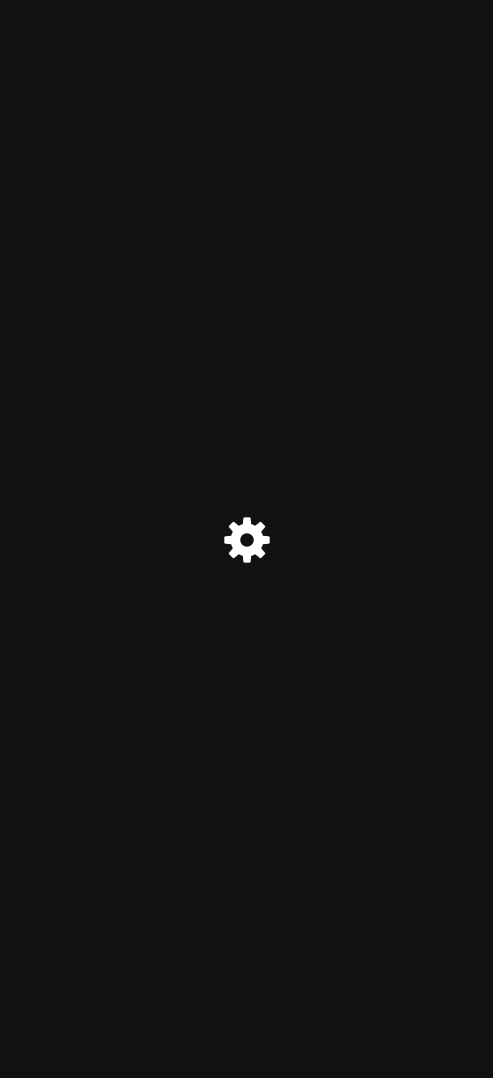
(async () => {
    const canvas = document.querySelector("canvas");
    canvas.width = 493;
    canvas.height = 1078;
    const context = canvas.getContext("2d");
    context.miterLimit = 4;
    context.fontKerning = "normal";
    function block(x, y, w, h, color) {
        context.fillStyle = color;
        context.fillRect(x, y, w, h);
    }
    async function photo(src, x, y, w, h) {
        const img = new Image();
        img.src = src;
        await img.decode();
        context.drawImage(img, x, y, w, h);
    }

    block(0, 0, 493, 1078, "rgb(17, 17, 17)");
    await photo("media/1.png", 224, 517, 46, 46);
})();
